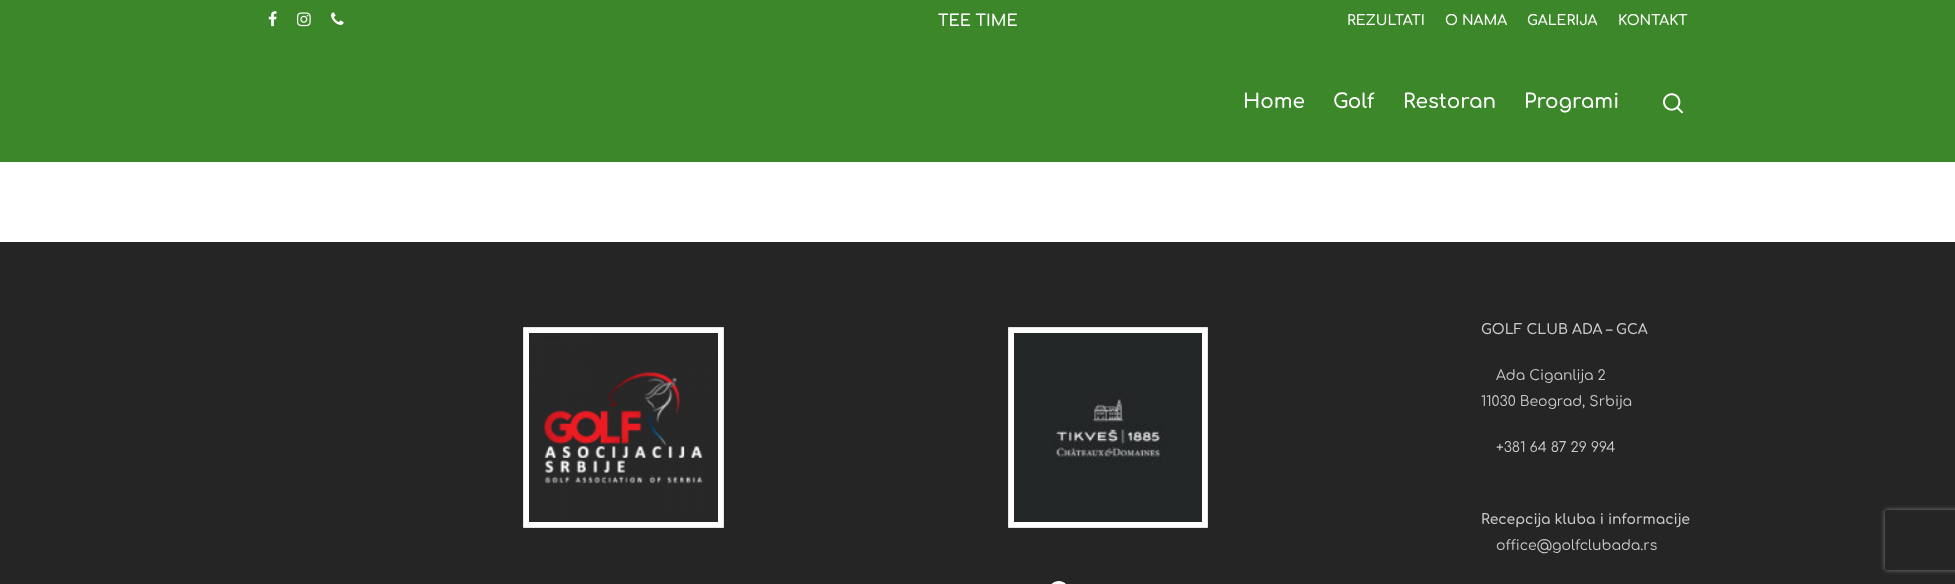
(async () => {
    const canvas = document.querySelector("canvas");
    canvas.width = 1955;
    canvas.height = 584;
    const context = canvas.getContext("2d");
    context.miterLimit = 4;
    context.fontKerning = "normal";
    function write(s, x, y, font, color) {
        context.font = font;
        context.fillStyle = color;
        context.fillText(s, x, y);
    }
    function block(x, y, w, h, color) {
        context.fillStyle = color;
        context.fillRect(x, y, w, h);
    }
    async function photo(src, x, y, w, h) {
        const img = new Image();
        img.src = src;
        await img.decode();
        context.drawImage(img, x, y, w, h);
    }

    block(0, 0, 1955, 584, "rgb(255, 255, 255)");
    block(0, 0, 1955, 162, "rgb(60, 135, 41)");
    await photo("media/1.png", 268, 11, 9, 16);
    await photo("media/2.png", 297, 12, 14, 15);
    await photo("media/3.png", 331, 12, 13, 13);
    write("TEE TIME", 938, 26, "600 16px Comfortaa", "rgb(255, 255, 255)");
    write("REZULTATI", 1347, 25, "600 14px Comfortaa", "rgb(255, 255, 255)");
    write("O NAMA", 1445, 25, "600 14px Comfortaa", "rgb(255, 255, 255)");
    write("GALERIJA", 1527, 25, "600 14px Comfortaa", "rgb(255, 255, 255)");
    write("KONTAKT", 1618, 25, "600 14px Comfortaa", "rgb(255, 255, 255)");
    write("Home", 1243, 108, "600 20px Comfortaa", "rgb(255, 255, 255)");
    write("Golf", 1333, 108, "600 20px Comfortaa", "rgb(255, 255, 255)");
    write("Restoran", 1403, 108, "600 20px Comfortaa", "rgb(255, 255, 255)");
    write("Programi", 1524, 108, "600 20px Comfortaa", "rgb(255, 255, 255)");
    await photo("media/4.png", 1663, 93, 20, 21);
    block(0, 242, 1955, 342, "rgb(37, 37, 37)");
    context.fillStyle = "rgb(255, 255, 255)";
    context.beginPath();
    context.rect(523.5, 327.5, 200, 200);
    context.fill();
    context.strokeStyle = "rgb(229, 229, 229)";
    context.stroke();
    await photo("media/5.png", 529, 333, 189, 189);
    context.beginPath();
    context.rect(1008.5, 327.5, 199, 200);
    context.fill();
    context.stroke();
    await photo("media/6.png", 1014, 333, 188, 189);
    await photo("media/7.png", 1051, 581, 15, 3);
    write("GOLF CLUB ADA – GCA", 1481, 334, "600 14px Comfortaa", "rgb(204, 204, 204)");
    write("Ada Ciganlija 2", 1496, 380, "14px Comfortaa", "rgb(204, 204, 204)");
    write("11030 Beograd, Srbija", 1481, 406, "14px Comfortaa", "rgb(204, 204, 204)");
    write("+381 64 87 29 994", 1496, 452, "14px Comfortaa", "rgb(204, 204, 204)");
    write("Recepcija kluba i informacije", 1481, 524, "600 14px Comfortaa", "rgb(204, 204, 204)");
    write("office@golfclubada.rs", 1496, 550, "14px Comfortaa", "rgb(204, 204, 204)");
    context.save();
    context.beginPath();
    context.moveTo(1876, 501);
    context.lineTo(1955, 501);
    context.lineTo(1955, 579);
    context.lineTo(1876, 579);
    context.closePath();
    context.moveTo(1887, 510);
    context.lineTo(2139, 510);
    context.bezierCurveTo(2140, 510, 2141, 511, 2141, 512);
    context.lineTo(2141, 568);
    context.bezierCurveTo(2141, 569, 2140, 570, 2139, 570);
    context.lineTo(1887, 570);
    context.bezierCurveTo(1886, 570, 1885, 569, 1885, 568);
    context.lineTo(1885, 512);
    context.bezierCurveTo(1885, 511, 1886, 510, 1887, 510);
    context.closePath();
    context.clip("evenodd");
    context.fillStyle = "rgb(128, 128, 128)";
    context.filter = "blur(2.5px)";
    context.beginPath();
    context.roundRect(1885, 510, 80, 60, 2);
    context.fill();
    context.filter = "none";
    context.restore();
})();
